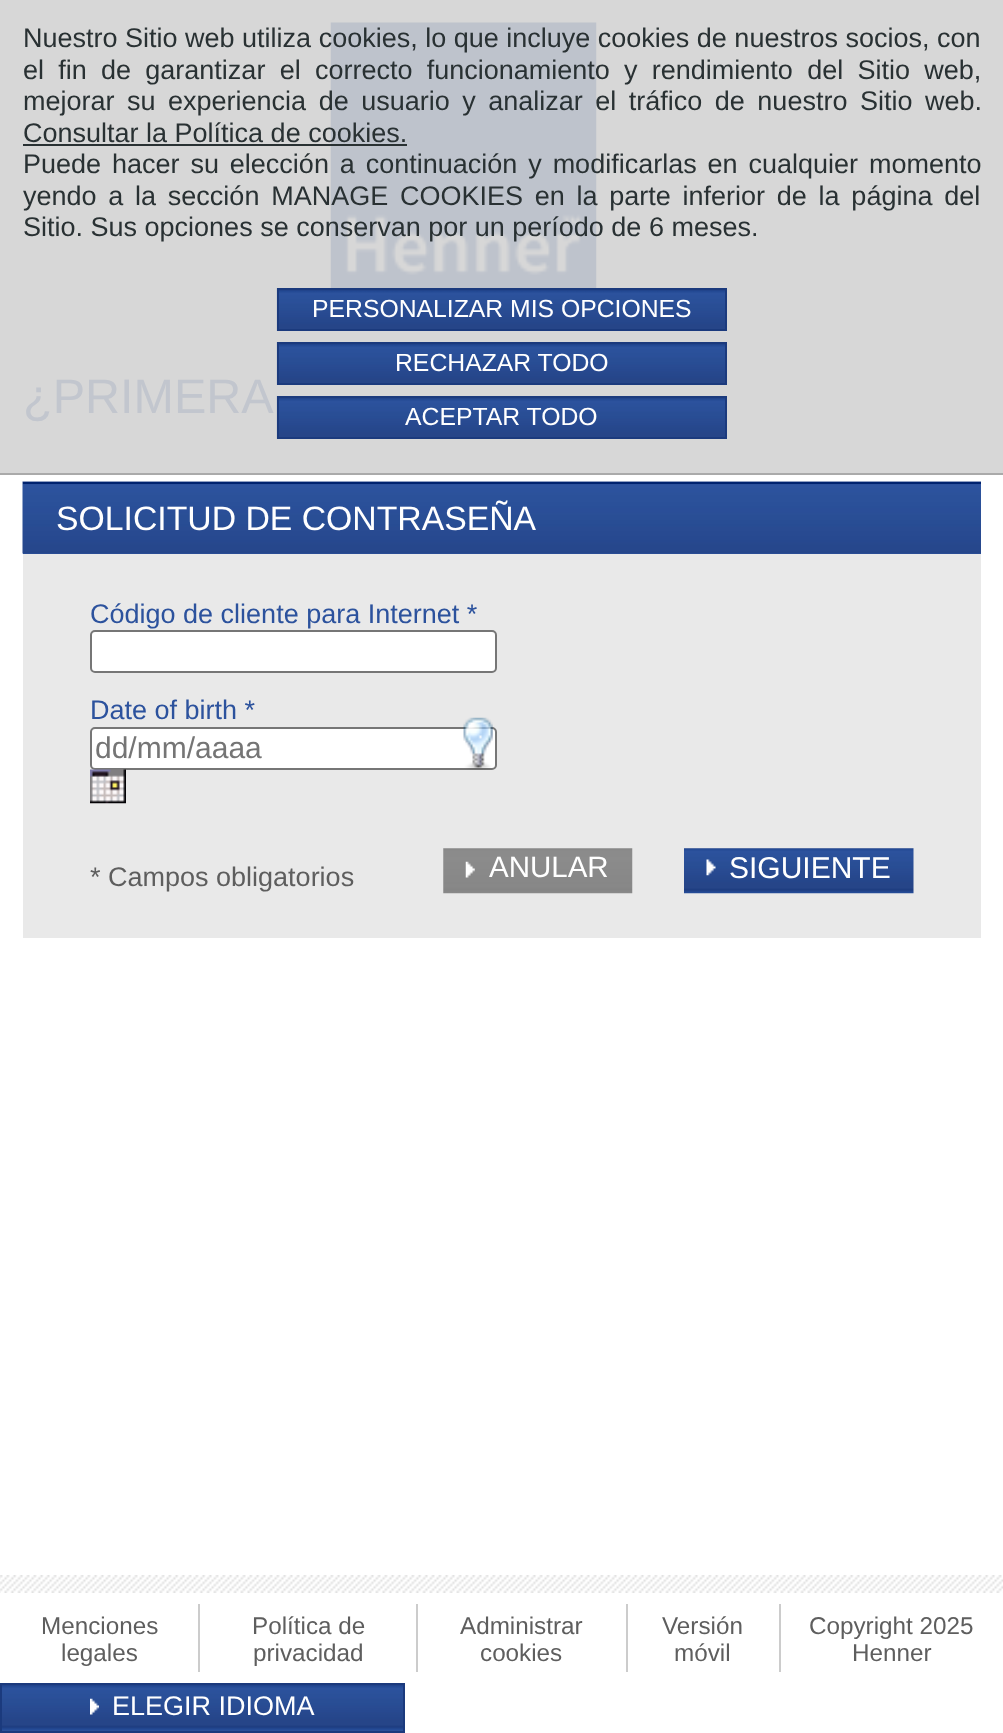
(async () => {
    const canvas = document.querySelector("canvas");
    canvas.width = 1003;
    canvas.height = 1733;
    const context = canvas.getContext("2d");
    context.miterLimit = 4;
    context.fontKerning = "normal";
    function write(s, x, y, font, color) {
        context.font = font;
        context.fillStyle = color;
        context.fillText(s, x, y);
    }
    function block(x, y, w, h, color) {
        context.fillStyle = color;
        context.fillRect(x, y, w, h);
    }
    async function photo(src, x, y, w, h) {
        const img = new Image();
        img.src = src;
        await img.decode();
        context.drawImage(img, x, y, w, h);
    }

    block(0, 0, 1003, 1733, "rgb(255, 255, 255)");
    block(0, 0, 1003, 473, "rgb(215, 215, 215)");
    await photo("media/1.png", 330, 22, 267, 266);
    block(0, 473, 1003, 2, "rgb(170, 170, 170)");
    write("Nuestro Sitio web utiliza cookies, lo que incluye cookies de nuestros socios, con", 23, 47, "27px Liberation Sans", "rgb(41, 49, 51)");
    context.wordSpacing = "6.75px";
    write("el fin de garantizar el correcto funcionamiento y rendimiento del Sitio web,", 23, 79, "27px Liberation Sans", "rgb(41, 49, 51)");
    context.wordSpacing = "5px";
    write("mejorar su experiencia de usuario y analizar el tráfico de nuestro Sitio web.", 23, 110, "27px Liberation Sans", "rgb(41, 49, 51)");
    context.wordSpacing = "0px";
    write("Consultar la Política de cookies.", 23, 142, "27px Liberation Sans", "rgb(41, 49, 51)");
    block(23, 144, 384, 2, "rgb(41, 49, 51)");
    context.wordSpacing = "3.4px";
    write("Puede hacer su elección a continuación y modificarlas en cualquier momento", 23, 173, "27px Liberation Sans", "rgb(41, 49, 51)");
    context.wordSpacing = "4.25px";
    write("yendo a la sección MANAGE COOKIES en la parte inferior de la página del", 23, 205, "27px Liberation Sans", "rgb(41, 49, 51)");
    context.wordSpacing = "0px";
    write("Sitio. Sus opciones se conservan por un período de 6 meses.", 23, 236, "27px Liberation Sans", "rgb(41, 49, 51)");
    await photo("media/2.png", 276, 288, 449, 43);
    context.strokeStyle = "rgb(27, 58, 125)";
    context.lineWidth = 2;
    context.strokeRect(278, 289, 448, 41);
    write("PERSONALIZAR MIS OPCIONES", 312, 317, "24.75px Liberation Sans", "rgb(255, 255, 255)");
    await photo("media/2.png", 276, 342, 449, 43);
    context.strokeRect(278, 343, 448, 41);
    write("RECHAZAR TODO", 395, 371, "24.75px Liberation Sans", "rgb(255, 255, 255)");
    await photo("media/2.png", 276, 396, 449, 43);
    context.strokeRect(278, 397, 448, 41);
    write("ACEPTAR TODO", 405, 425, "24.75px Liberation Sans", "rgb(255, 255, 255)");
    write("¿PRIMERA", 23, 413, "48.5px Liberation Sans", "rgb(194, 198, 206)");
    block(23, 554, 958, 384, "rgb(233, 233, 233)");
    block(23, 553, 958, 1, "rgb(44, 82, 157)");
    await photo("media/3.png", 22, 481, 959, 73);
    block(23, 482, 958, 2, "rgb(0, 35, 111)");
    write("SOLICITUD DE CONTRASEÑA", 56, 530, "33.75px Liberation Sans", "rgb(255, 255, 255)");
    write("Código de cliente para Internet *", 90, 623, "27px Liberation Sans", "rgb(44, 82, 157)");
    context.fillStyle = "rgb(255, 255, 255)";
    context.beginPath();
    context.roundRect(91, 631, 405, 41, 4);
    context.fill();
    context.strokeStyle = "rgb(118, 118, 118)";
    context.stroke();
    write("Date of birth *", 90, 719, "27px Liberation Sans", "rgb(44, 82, 157)");
    context.fillStyle = "rgb(255, 255, 255)";
    context.beginPath();
    context.roundRect(91, 728, 405, 41, 4);
    context.fill();
    context.stroke();
    write("dd/mm/aaaa", 95, 758, "30px Liberation Sans", "rgb(117, 117, 117)");
    await photo("media/4.png", 463, 717, 30, 53);
    await photo("media/5.png", 90, 769, 36, 35);
    write("* Campos obligatorios", 90, 886, "27px Liberation Sans", "rgb(94, 94, 94)");
    await photo("media/6.png", 443, 848, 190, 46);
    await photo("media/7.png", 465, 861, 10, 17);
    write("ANULAR", 489, 877, "29.5px Liberation Sans", "rgb(255, 255, 255)");
    await photo("media/8.png", 684, 848, 230, 46);
    await photo("media/9.png", 706, 859, 10, 17);
    write("SIGUIENTE", 729, 878, "30px Liberation Sans", "rgb(255, 255, 255)");
    await photo("media/10.png", 0, 1575, 1003, 18);
    block(198, 1604, 2, 68, "rgb(204, 204, 204)");
    write("Menciones", 41, 1634, "24.25px Liberation Sans", "rgb(94, 94, 94)");
    write("legales", 61, 1661, "24.25px Liberation Sans", "rgb(94, 94, 94)");
    block(416, 1604, 2, 68, "rgb(204, 204, 204)");
    write("Política de", 252, 1634, "24.25px Liberation Sans", "rgb(94, 94, 94)");
    write("privacidad", 253, 1661, "24.25px Liberation Sans", "rgb(94, 94, 94)");
    block(626, 1604, 2, 68, "rgb(204, 204, 204)");
    write("Administrar", 460, 1634, "24.25px Liberation Sans", "rgb(94, 94, 94)");
    write("cookies", 480, 1661, "24.25px Liberation Sans", "rgb(94, 94, 94)");
    block(779, 1604, 2, 68, "rgb(204, 204, 204)");
    write("Versión", 662, 1634, "24.25px Liberation Sans", "rgb(94, 94, 94)");
    write("móvil", 674, 1661, "24.25px Liberation Sans", "rgb(94, 94, 94)");
    write("Copyright 2025", 809, 1634, "24.25px Liberation Sans", "rgb(94, 94, 94)");
    write("Henner", 852, 1661, "24.25px Liberation Sans", "rgb(94, 94, 94)");
    block(2, 1730, 401, 1, "rgb(42, 80, 153)");
    await photo("media/11.png", 2, 1685, 401, 45);
    context.strokeStyle = "rgb(27, 58, 125)";
    context.strokeRect(1, 1684, 403, 48);
    await photo("media/12.png", 90, 1698, 9, 17);
    write("ELEGIR IDIOMA", 112, 1715, "27px Liberation Sans", "rgb(255, 255, 255)");
})();
